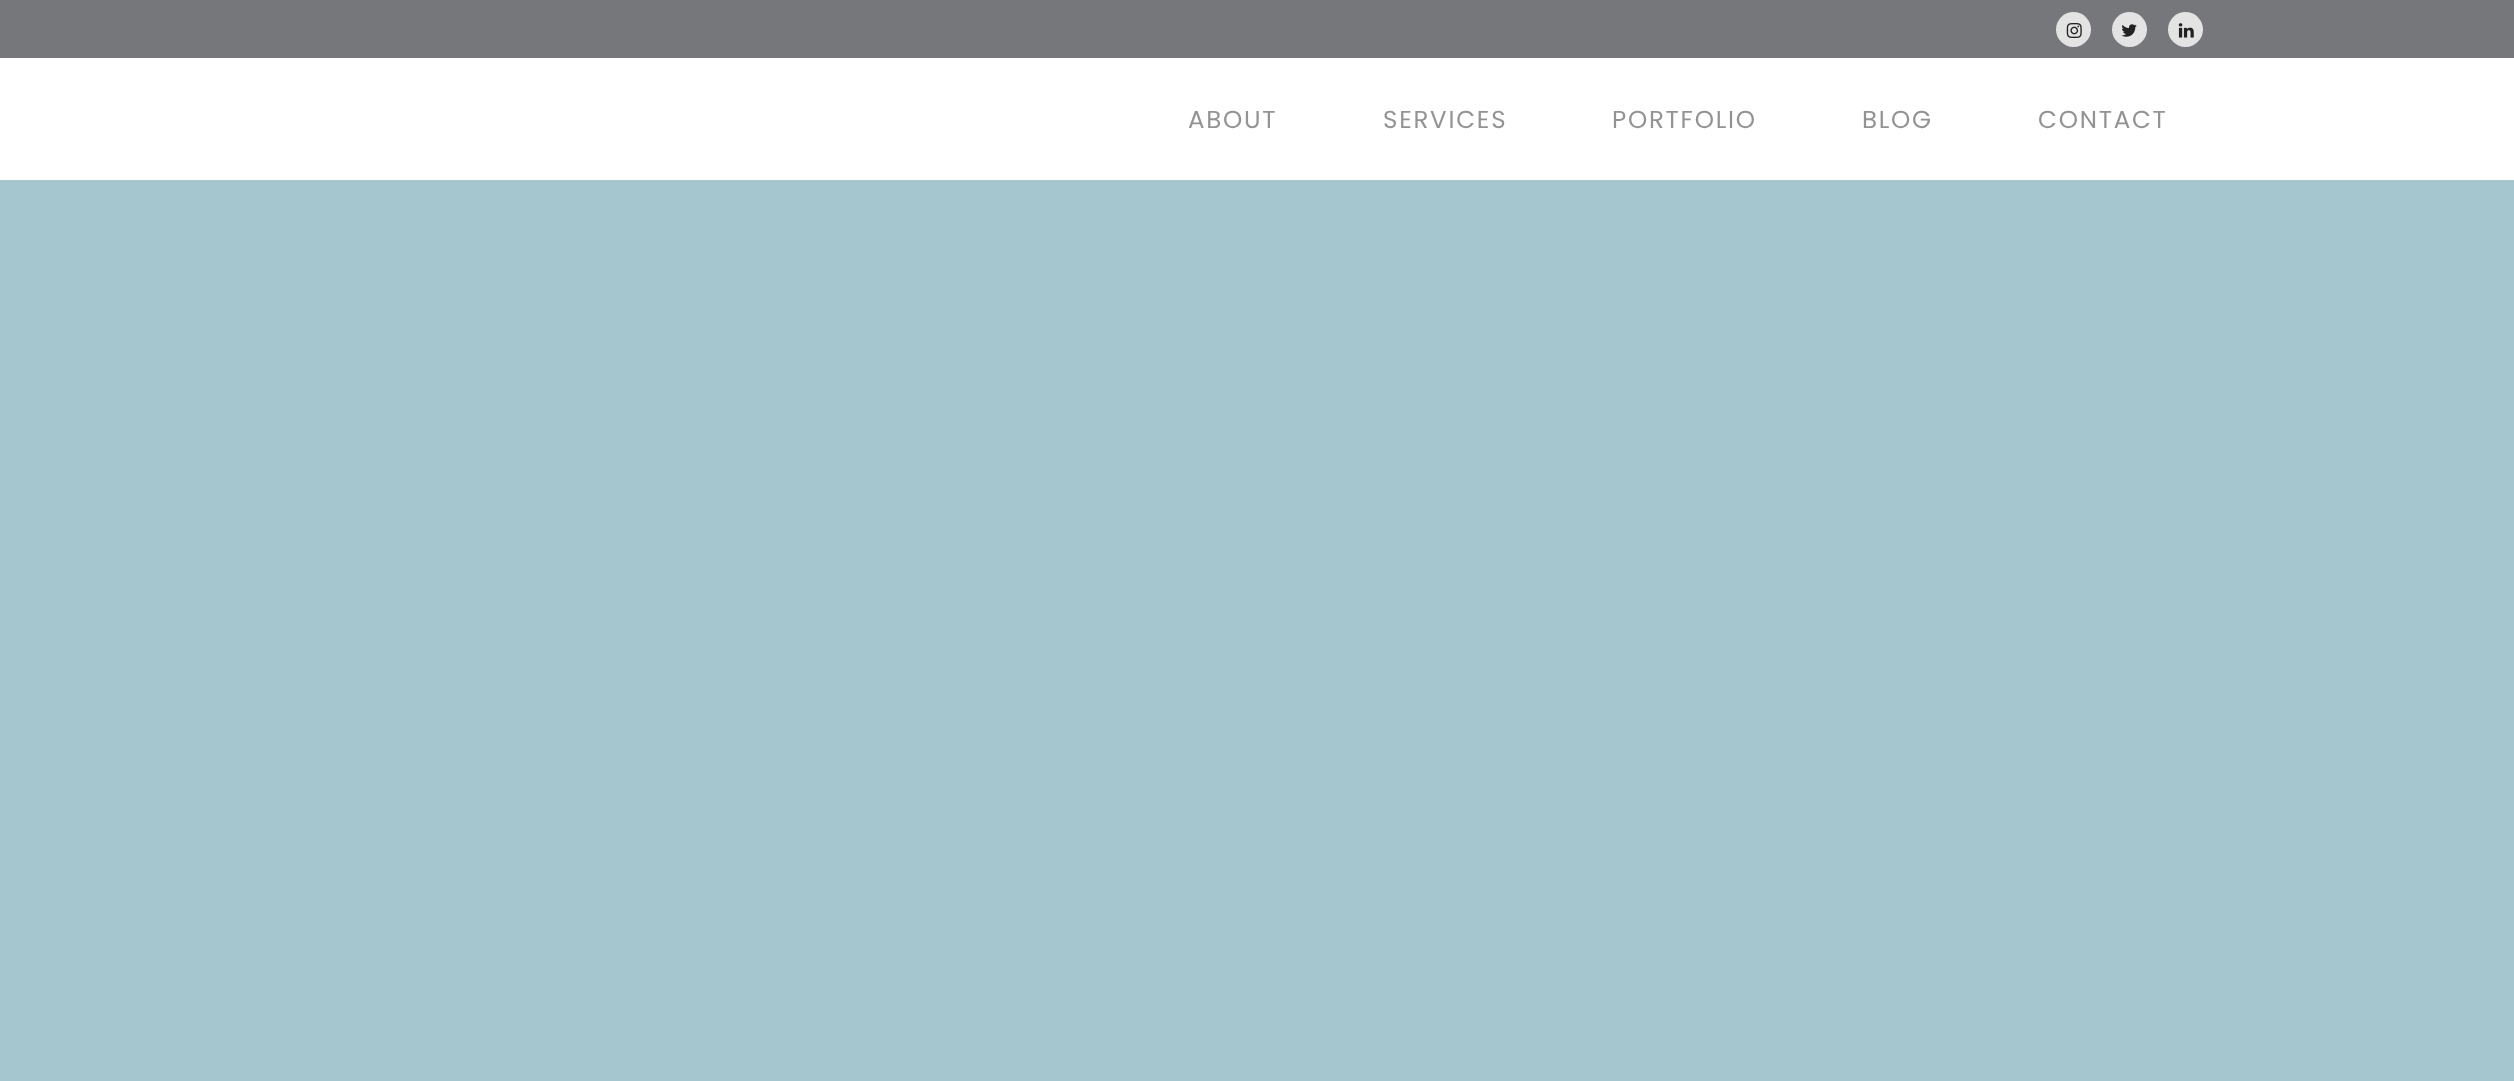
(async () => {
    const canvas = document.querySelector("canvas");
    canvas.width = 2514;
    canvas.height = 1081;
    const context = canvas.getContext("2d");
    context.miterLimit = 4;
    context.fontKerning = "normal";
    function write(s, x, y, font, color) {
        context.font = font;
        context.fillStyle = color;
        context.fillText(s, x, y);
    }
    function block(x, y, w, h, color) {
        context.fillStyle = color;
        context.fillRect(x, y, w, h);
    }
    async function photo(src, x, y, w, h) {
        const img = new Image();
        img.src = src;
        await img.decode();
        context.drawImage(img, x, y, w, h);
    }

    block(0, 0, 2514, 1081, "rgb(165, 198, 207)");
    block(0, 0, 2514, 58, "rgb(118, 119, 123)");
    context.fillStyle = "rgb(227, 227, 227)";
    context.beginPath();
    context.arc(2073.5, 29.5, 17.5, 0, Math.PI * 2);
    context.fill();
    await photo("media/1.png", 2066, 23, 16, 15);
    context.beginPath();
    context.arc(2129.5, 29.5, 17.5, 0, Math.PI * 2);
    context.fill();
    await photo("media/2.png", 2121, 24, 16, 13);
    context.beginPath();
    context.arc(2185.5, 29.5, 17.5, 0, Math.PI * 2);
    context.fill();
    await photo("media/3.png", 2178, 23, 16, 15);
    block(0, 58, 2514, 122, "rgb(255, 255, 255)");
    context.letterSpacing = "1.75px";
    write("ABOUT", 1188, 128, "24.5px Poppins", "rgb(147, 147, 147)");
    write("SERVICES", 1383, 128, "24.5px Poppins", "rgb(147, 147, 147)");
    write("PORTFOLIO", 1612, 128, "24.5px Poppins", "rgb(147, 147, 147)");
    write("BLOG", 1862, 128, "24.5px Poppins", "rgb(147, 147, 147)");
    write("CONTACT", 2038, 128, "24.5px Poppins", "rgb(147, 147, 147)");
})();
